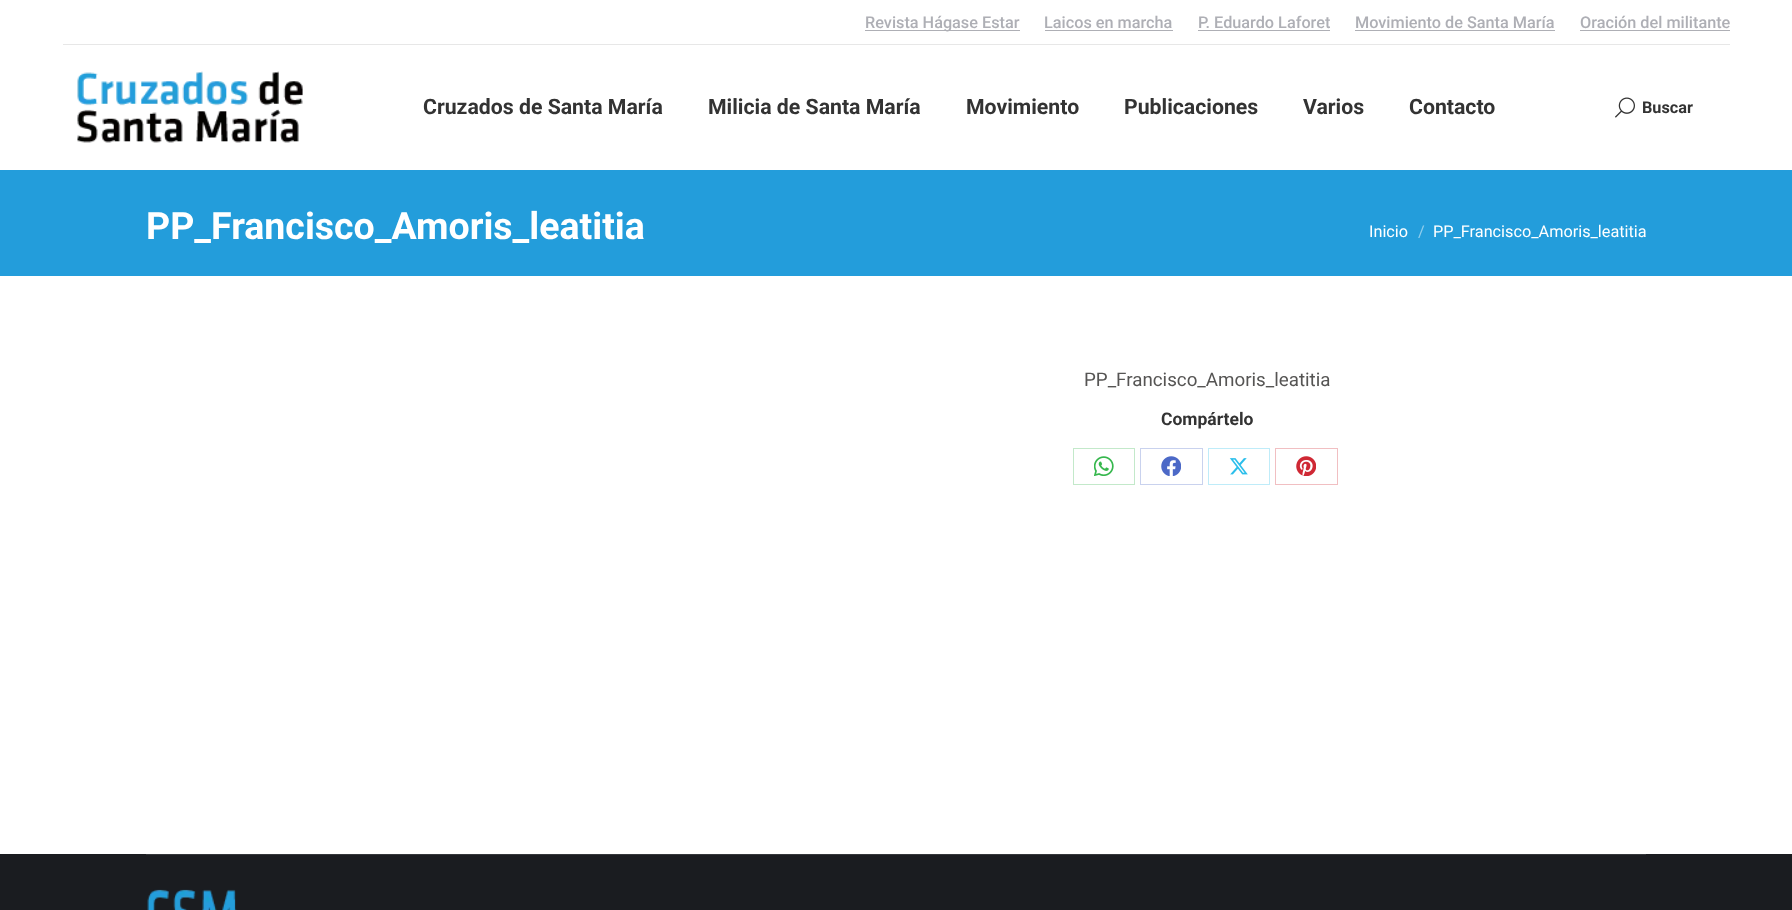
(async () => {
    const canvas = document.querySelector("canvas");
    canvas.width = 1792;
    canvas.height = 910;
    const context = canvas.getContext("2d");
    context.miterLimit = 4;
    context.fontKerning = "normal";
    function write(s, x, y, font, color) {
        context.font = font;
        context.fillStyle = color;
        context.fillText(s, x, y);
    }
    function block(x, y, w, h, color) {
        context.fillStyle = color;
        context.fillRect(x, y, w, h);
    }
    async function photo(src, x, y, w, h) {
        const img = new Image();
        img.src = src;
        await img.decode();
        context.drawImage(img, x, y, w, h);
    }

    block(0, 0, 1792, 910, "rgb(255, 255, 255)");
    block(865, 30, 155, 1, "rgb(174, 175, 181)");
    write("Revista Hágase Estar", 865, 28, "500 16.25px Roboto", "rgb(174, 175, 181)");
    write("Laicos en marcha", 1044, 28, "500 16.25px Roboto", "rgb(174, 175, 181)");
    block(1045, 30, 128, 1, "rgb(174, 175, 181)");
    write("P. Eduardo Laforet", 1198, 28, "500 16.25px Roboto", "rgb(174, 175, 181)");
    block(1198, 30, 132, 1, "rgb(174, 175, 181)");
    write("Movimiento de Santa María", 1355, 28, "500 16.25px Roboto", "rgb(174, 175, 181)");
    block(1355, 30, 200, 1, "rgb(174, 175, 181)");
    write("Oración del militante", 1580, 28, "500 16.25px Roboto", "rgb(174, 175, 181)");
    block(1580, 30, 150, 1, "rgb(174, 175, 181)");
    block(63, 44, 1667, 1, "rgb(231, 231, 231)");
    await photo("media/1.png", 77, 71, 226, 72);
    write("Cruzados de Santa María", 423, 114, "bold 21.25px Roboto", "rgb(51, 51, 51)");
    write("Milicia de Santa María", 708, 114, "bold 21.25px Roboto", "rgb(51, 51, 51)");
    write("Movimiento", 966, 114, "bold 21.25px Roboto", "rgb(51, 51, 51)");
    write("Publicaciones", 1124, 114, "bold 21.25px Roboto", "rgb(51, 51, 51)");
    write("Varios", 1303, 114, "bold 21.25px Roboto", "rgb(51, 51, 51)");
    write("Contacto", 1409, 114, "bold 21.25px Roboto", "rgb(51, 51, 51)");
    await photo("media/2.png", 1615, 97, 20, 21);
    write("Buscar", 1642, 113, "bold 16.25px Roboto", "rgb(51, 51, 51)");
    block(0, 170, 1792, 106, "rgb(35, 157, 219)");
    write("PP_Francisco_Amoris_leatitia", 146, 239, "bold 37.5px Roboto", "rgb(255, 255, 255)");
    write("Inicio", 1369, 237, "16.25px Roboto", "rgb(255, 255, 255)");
    write("/", 1418, 237, "16.25px Roboto", "rgb(145, 206, 237)");
    write("PP_Francisco_Amoris_leatitia", 1433, 237, "16.25px Roboto", "rgb(255, 255, 255)");
    write("PP_Francisco_Amoris_leatitia", 1084, 386, "18.75px Roboto", "rgb(86, 85, 84)");
    write("Compártelo", 1161, 425, "bold 17.5px Roboto", "rgb(51, 51, 51)");
    context.strokeStyle = "rgb(195, 233, 202)";
    context.strokeRect(1073.5, 448.5, 61, 36);
    await photo("media/3.png", 1094, 456, 20, 20);
    context.strokeStyle = "rgb(201, 210, 238)";
    context.strokeRect(1140.5, 448.5, 62, 36);
    await photo("media/4.png", 1161, 456, 20, 20);
    context.strokeStyle = "rgb(191, 236, 249)";
    context.strokeRect(1208.5, 448.5, 61, 36);
    await photo("media/5.png", 1229, 458, 19, 17);
    context.strokeStyle = "rgb(241, 191, 194)";
    context.strokeRect(1275.5, 448.5, 62, 36);
    await photo("media/6.png", 1296, 456, 20, 20);
    block(0, 854, 1792, 56, "rgb(26, 28, 32)");
    block(146, 854, 1500, 1, "rgb(53, 55, 59)");
    await photo("media/7.png", 147, 889, 90, 21);
})();
